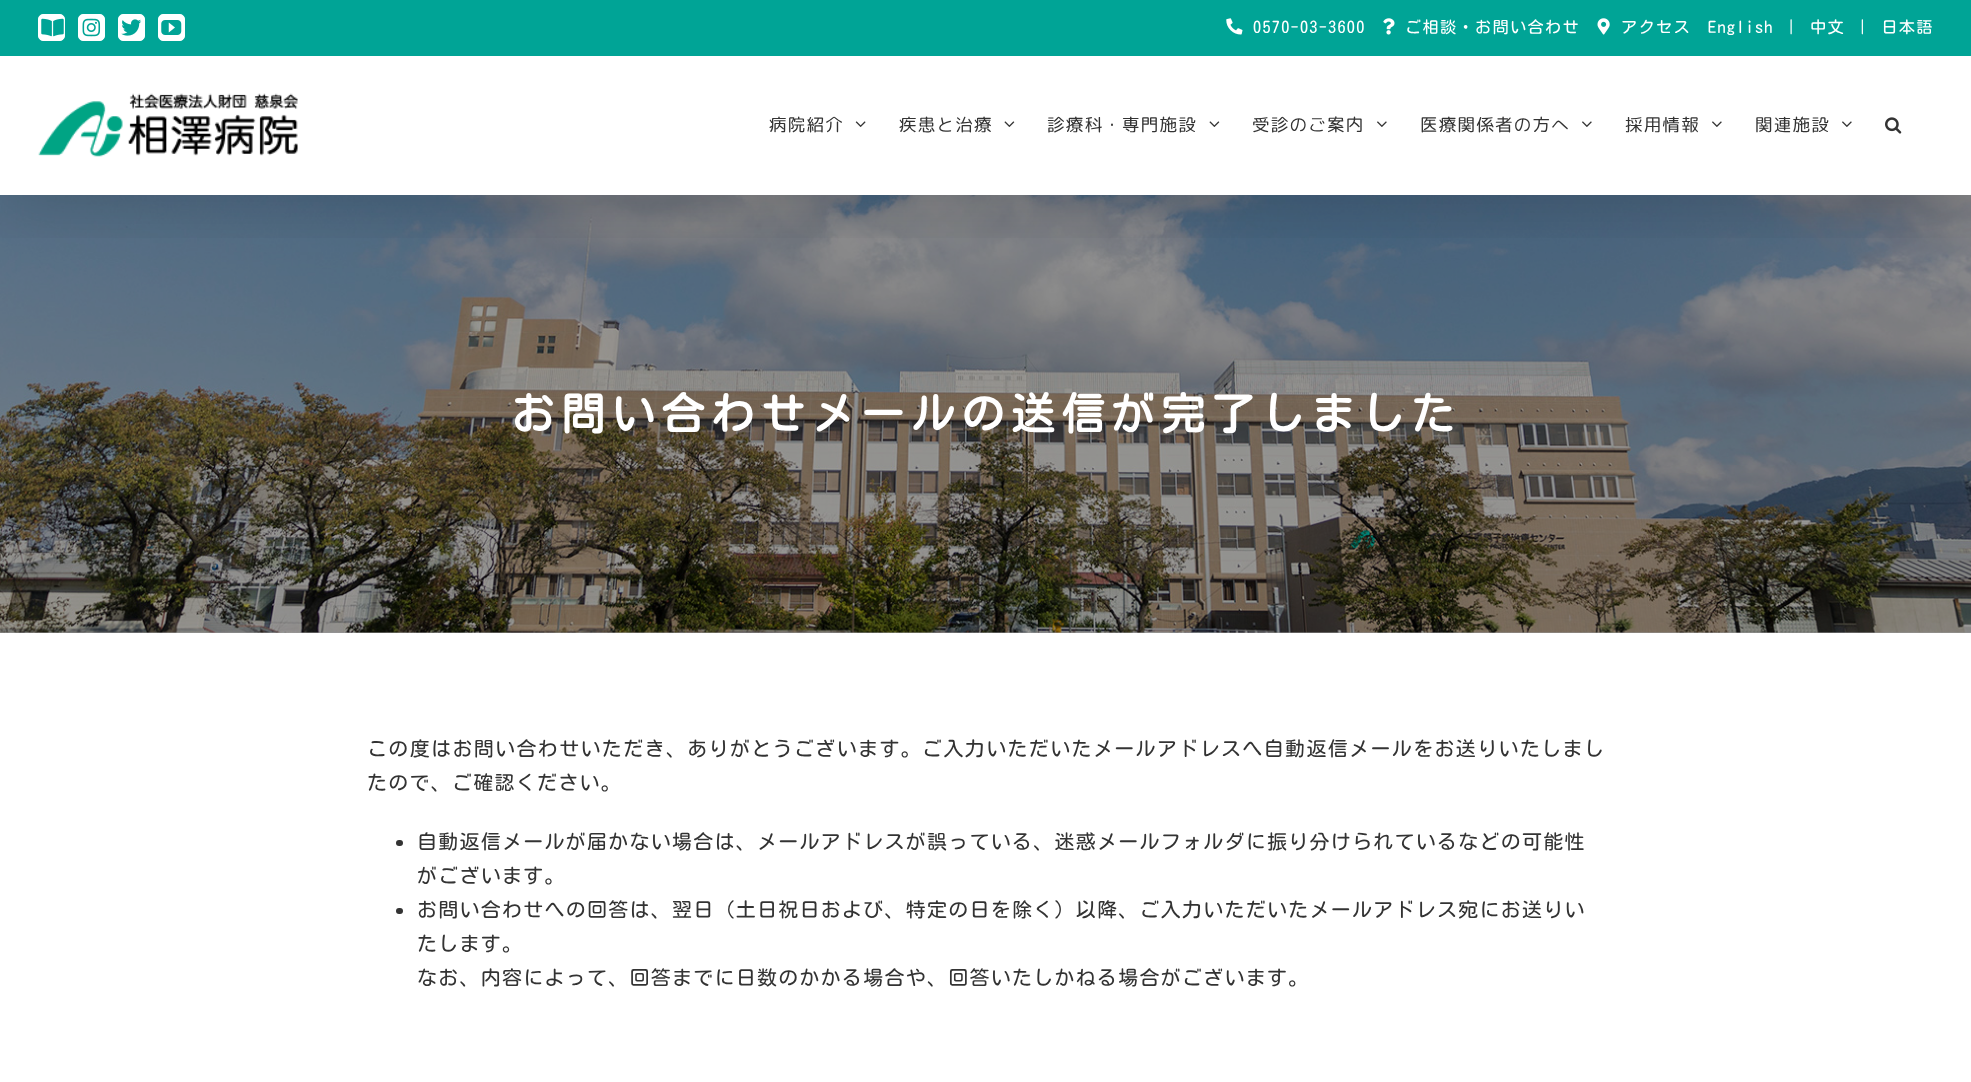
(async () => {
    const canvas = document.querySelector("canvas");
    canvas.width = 1971;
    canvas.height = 1082;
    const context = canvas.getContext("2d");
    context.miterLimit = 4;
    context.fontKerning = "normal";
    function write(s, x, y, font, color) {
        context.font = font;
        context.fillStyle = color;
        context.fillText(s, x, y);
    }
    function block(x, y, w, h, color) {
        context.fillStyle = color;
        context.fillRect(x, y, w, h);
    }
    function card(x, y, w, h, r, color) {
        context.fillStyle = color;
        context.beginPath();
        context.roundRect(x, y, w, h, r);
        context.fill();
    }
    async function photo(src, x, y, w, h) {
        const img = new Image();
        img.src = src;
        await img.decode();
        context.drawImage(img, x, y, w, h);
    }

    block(0, 0, 1971, 1082, "rgb(255, 255, 255)");
    block(0, 632, 1971, 1, "rgb(153, 153, 153)");
    await photo("media/13.png", 0, 195, 1971, 438);
    context.save();
    context.beginPath();
    context.rect(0, 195, 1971, 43);
    context.clip();
    context.fillStyle = "rgba(0, 0, 0, 0.14)";
    context.filter = "blur(31px)";
    context.beginPath();
    context.rect(3, 15, 1966, 190);
    context.fill();
    context.filter = "none";
    context.restore();
    block(0, 0, 1971, 56, "rgb(0, 164, 150)");
    context.fillStyle = "rgb(255, 255, 255)";
    context.beginPath();
    context.roundRect(38.5, 14.5, 26, 26, 4.5);
    context.fill();
    context.strokeStyle = "rgb(255, 255, 255)";
    context.stroke();
    await photo("media/1.png", 41, 18, 23, 19);
    context.beginPath();
    context.roundRect(78.5, 14.5, 26, 26, 4.5);
    context.fill();
    context.stroke();
    await photo("media/2.png", 82, 18, 19, 19);
    context.beginPath();
    context.roundRect(118.5, 14.5, 26, 26, 4.5);
    context.fill();
    context.stroke();
    await photo("media/3.png", 121, 19, 21, 17);
    context.beginPath();
    context.roundRect(158.5, 14.5, 26, 26, 4.5);
    context.fill();
    context.stroke();
    await photo("media/4.png", 161, 20, 21, 15);
    await photo("media/5.png", 1226, 18, 17, 17);
    context.letterSpacing = "1.25px";
    write("0570-03-3600", 1253, 33, "16.25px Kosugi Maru", "rgb(255, 255, 255)");
    await photo("media/6.png", 1383, 18, 12, 17);
    write("ご相談・お問い合わせ", 1405, 33, "16.25px Kosugi Maru", "rgb(255, 255, 255)");
    await photo("media/7.png", 1597, 18, 13, 17);
    write("アクセス", 1621, 33, "16.25px Kosugi Maru", "rgb(255, 255, 255)");
    write("English ｜ 中文 ｜ 日本語", 1708, 33, "16.25px Kosugi Maru", "rgb(255, 255, 255)");
    await photo("media/8.png", 38, 93, 260, 64);
    write("病院紹介", 769, 131, "17.5px 'Rounded Mplus 1c'", "rgb(51, 51, 51)");
    await photo("media/9.png", 855, 121, 11, 6);
    write("疾患と治療", 899, 131, "17.5px 'Rounded Mplus 1c'", "rgb(51, 51, 51)");
    await photo("media/10.png", 1004, 121, 11, 6);
    write("診療科・専門施設", 1047, 131, "17.5px 'Rounded Mplus 1c'", "rgb(51, 51, 51)");
    await photo("media/10.png", 1209, 121, 11, 6);
    write("受診のご案内", 1252, 131, "17.5px 'Rounded Mplus 1c'", "rgb(51, 51, 51)");
    await photo("media/11.png", 1377, 121, 10, 6);
    write("医療関係者の方へ", 1420, 131, "17.5px 'Rounded Mplus 1c'", "rgb(51, 51, 51)");
    await photo("media/11.png", 1582, 121, 10, 6);
    write("採用情報", 1625, 131, "17.5px 'Rounded Mplus 1c'", "rgb(51, 51, 51)");
    await photo("media/11.png", 1712, 121, 10, 6);
    write("関連施設", 1755, 131, "17.5px 'Rounded Mplus 1c'", "rgb(51, 51, 51)");
    await photo("media/11.png", 1842, 121, 10, 6);
    await photo("media/12.png", 1885, 117, 17, 17);
    context.letterSpacing = "6.25px";
    write("お問い合わせメールの送信が完了しました", 511, 430, "bold 43.75px Kosugi Maru", "rgb(255, 255, 255)");
    context.letterSpacing = "1.35px";
    write("この度はお問い合わせいただき、ありがとうございます。ご入力いただいたメールアドレスへ自動返信メールをお送りいたしまし", 367, 756, "20px Kosugi Maru", "rgb(51, 51, 51)");
    context.letterSpacing = "1.25px";
    write("たので、ご確認ください。", 367, 790, "20px Kosugi Maru", "rgb(51, 51, 51)");
    card(396, 840, 7, 6, 3, "rgb(51, 51, 51)");
    write("自動返信メールが届かない場合は、メールアドレスが誤っている、迷惑メールフォルダに振り分けられているなどの可能性", 417, 849, "20px Kosugi Maru", "rgb(51, 51, 51)");
    write("がございます。", 417, 883, "20px Kosugi Maru", "rgb(51, 51, 51)");
    card(396, 908, 7, 6, 3, "rgb(51, 51, 51)");
    write("お問い合わせへの回答は、翌日（土日祝日および、特定の日を除く）以降、ご入力いただいたメールアドレス宛にお送りい", 417, 917, "20px Kosugi Maru", "rgb(51, 51, 51)");
    write("たします。", 417, 951, "20px Kosugi Maru", "rgb(51, 51, 51)");
    write("なお、内容によって、回答までに日数のかかる場合や、回答いたしかねる場合がございます。", 417, 985, "20px Kosugi Maru", "rgb(51, 51, 51)");
})();
